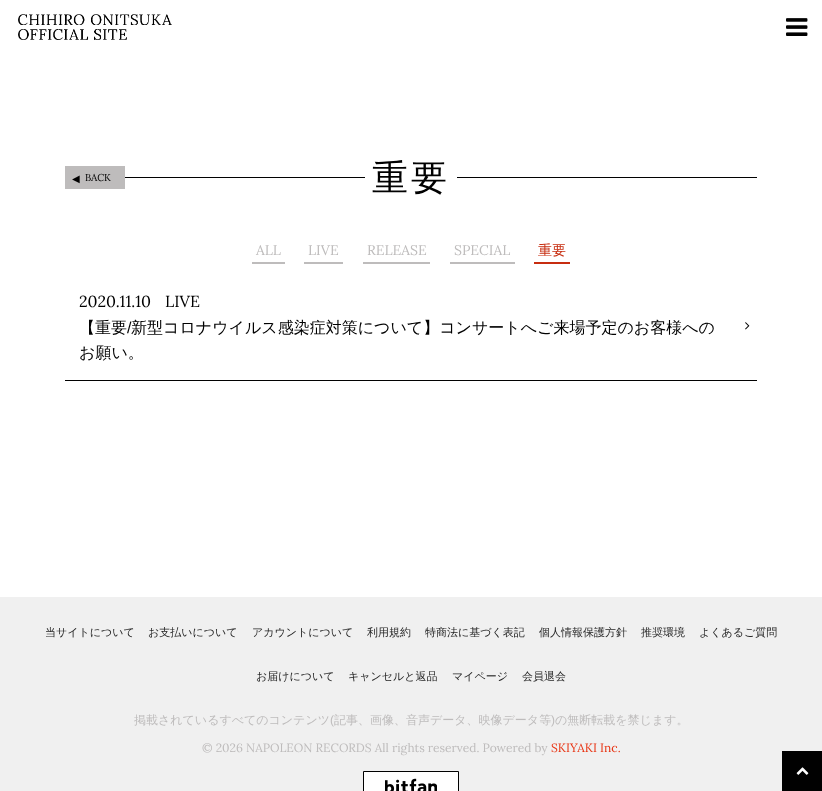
(async () => {
    const canvas = document.querySelector("canvas");
    canvas.width = 822;
    canvas.height = 791;
    const context = canvas.getContext("2d");
    context.miterLimit = 4;
    context.fontKerning = "normal";
    function write(s, x, y, font, color) {
        context.font = font;
        context.fillStyle = color;
        context.fillText(s, x, y);
    }
    function block(x, y, w, h, color) {
        context.fillStyle = color;
        context.fillRect(x, y, w, h);
    }
    async function photo(src, x, y, w, h) {
        const img = new Image();
        img.src = src;
        await img.decode();
        context.drawImage(img, x, y, w, h);
    }

    block(0, 0, 822, 791, "rgb(255, 255, 255)");
    await photo("media/1.png", 18, 14, 154, 26);
    await photo("media/2.png", 786, 18, 22, 18);
    block(65, 166, 60, 23, "rgb(190, 188, 188)");
    write("◀︎", 72, 182, "10px DejaVu Sans", "rgb(1, 1, 1)");
    write("BACK", 85, 181, "10px Lora", "rgb(1, 1, 1)");
    block(125, 177, 240, 1, "rgb(1, 1, 1)");
    context.letterSpacing = "3px";
    write("重要", 372, 190, "500 36px WenQuanYi Zen Hei", "rgb(1, 1, 1)");
    block(457, 177, 300, 1, "rgb(1, 1, 1)");
    block(252, 262, 33, 2, "rgb(190, 188, 188)");
    context.letterSpacing = "0px";
    write("ALL", 256, 255, "14px Lora", "rgb(190, 188, 188)");
    block(304, 262, 39, 2, "rgb(190, 188, 188)");
    write("LIVE", 308, 255, "14px Lora", "rgb(190, 188, 188)");
    block(363, 262, 67, 2, "rgb(190, 188, 188)");
    write("RELEASE", 367, 255, "14px Lora", "rgb(190, 188, 188)");
    block(450, 262, 65, 2, "rgb(190, 188, 188)");
    write("SPECIAL", 454, 255, "14px Lora", "rgb(190, 188, 188)");
    block(534, 262, 36, 2, "rgb(199, 45, 16)");
    write("重要", 538, 255, "500 14px WenQuanYi Zen Hei", "rgb(199, 45, 16)");
    block(65, 380, 692, 1, "rgb(1, 1, 1)");
    write("2020.11.10", 79, 307, "16px Lora", "rgb(1, 1, 1)");
    write("LIVE", 165, 307, "16px Lora", "rgb(1, 1, 1)");
    write("【重要", 79, 333, "500 16px WenQuanYi Zen Hei", "rgb(1, 1, 1)");
    write("/", 127, 333, "16px Liberation Sans", "rgb(1, 1, 1)");
    write("新型コロナウイルス感染症対策について】コンサートへご来場予定のお客様への", 131, 333, "500 16px WenQuanYi Zen Hei", "rgb(1, 1, 1)");
    write("お願い。", 79, 358, "500 16px WenQuanYi Zen Hei", "rgb(1, 1, 1)");
    await photo("media/3.png", 745, 322, 5, 8);
    block(0, 597, 822, 194, "rgb(240, 240, 240)");
    write("当サイトについて", 45, 636, "500 11px WenQuanYi Zen Hei", "rgb(37, 37, 37)");
    write("お支払いについて", 148, 636, "500 11px WenQuanYi Zen Hei", "rgb(37, 37, 37)");
    write("アカウントについて", 252, 636, "500 11px WenQuanYi Zen Hei", "rgb(37, 37, 37)");
    write("利用規約", 367, 636, "500 11px WenQuanYi Zen Hei", "rgb(37, 37, 37)");
    write("特商法に基づく表記", 425, 636, "500 11px WenQuanYi Zen Hei", "rgb(37, 37, 37)");
    write("個人情報保護方針", 539, 636, "500 11px WenQuanYi Zen Hei", "rgb(37, 37, 37)");
    write("推奨環境", 641, 636, "500 11px WenQuanYi Zen Hei", "rgb(37, 37, 37)");
    write("よくあるご質問", 699, 636, "500 11px WenQuanYi Zen Hei", "rgb(37, 37, 37)");
    write("お届けについて", 256, 680, "500 11px WenQuanYi Zen Hei", "rgb(37, 37, 37)");
    write("キャンセルと返品", 348, 680, "500 11px WenQuanYi Zen Hei", "rgb(37, 37, 37)");
    write("マイページ", 452, 680, "500 11px WenQuanYi Zen Hei", "rgb(37, 37, 37)");
    write("会員退会", 522, 680, "500 11px WenQuanYi Zen Hei", "rgb(37, 37, 37)");
    write("掲載されているすべてのコンテンツ", 134, 724, "500 12px WenQuanYi Zen Hei", "rgb(190, 188, 188)");
    write("(", 330, 724, "12px Liberation Sans", "rgb(190, 188, 188)");
    write("記事、画像、音声データ、映像データ等", 334, 724, "500 12px WenQuanYi Zen Hei", "rgb(190, 188, 188)");
    write(")", 551, 724, "12px Liberation Sans", "rgb(190, 188, 188)");
    write("の無断転載を禁じます。", 555, 724, "500 12px WenQuanYi Zen Hei", "rgb(190, 188, 188)");
    write("© 2026 NAPOLEON RECORDS All rights reserved. Powered by", 202, 752, "12px Lora", "rgb(190, 188, 188)");
    write("SKIYAKI Inc.", 551, 752, "12px Lora", "rgb(232, 52, 19)");
    context.fillStyle = "rgb(255, 255, 255)";
    context.beginPath();
    context.rect(363.5, 771.5, 95, 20);
    context.fill();
    context.strokeStyle = "rgb(0, 0, 0)";
    context.stroke();
    await photo("media/4.png", 385, 778, 52, 13);
    block(782, 751, 40, 40, "rgb(1, 1, 1)");
    await photo("media/5.png", 796, 767, 13, 8);
})();
